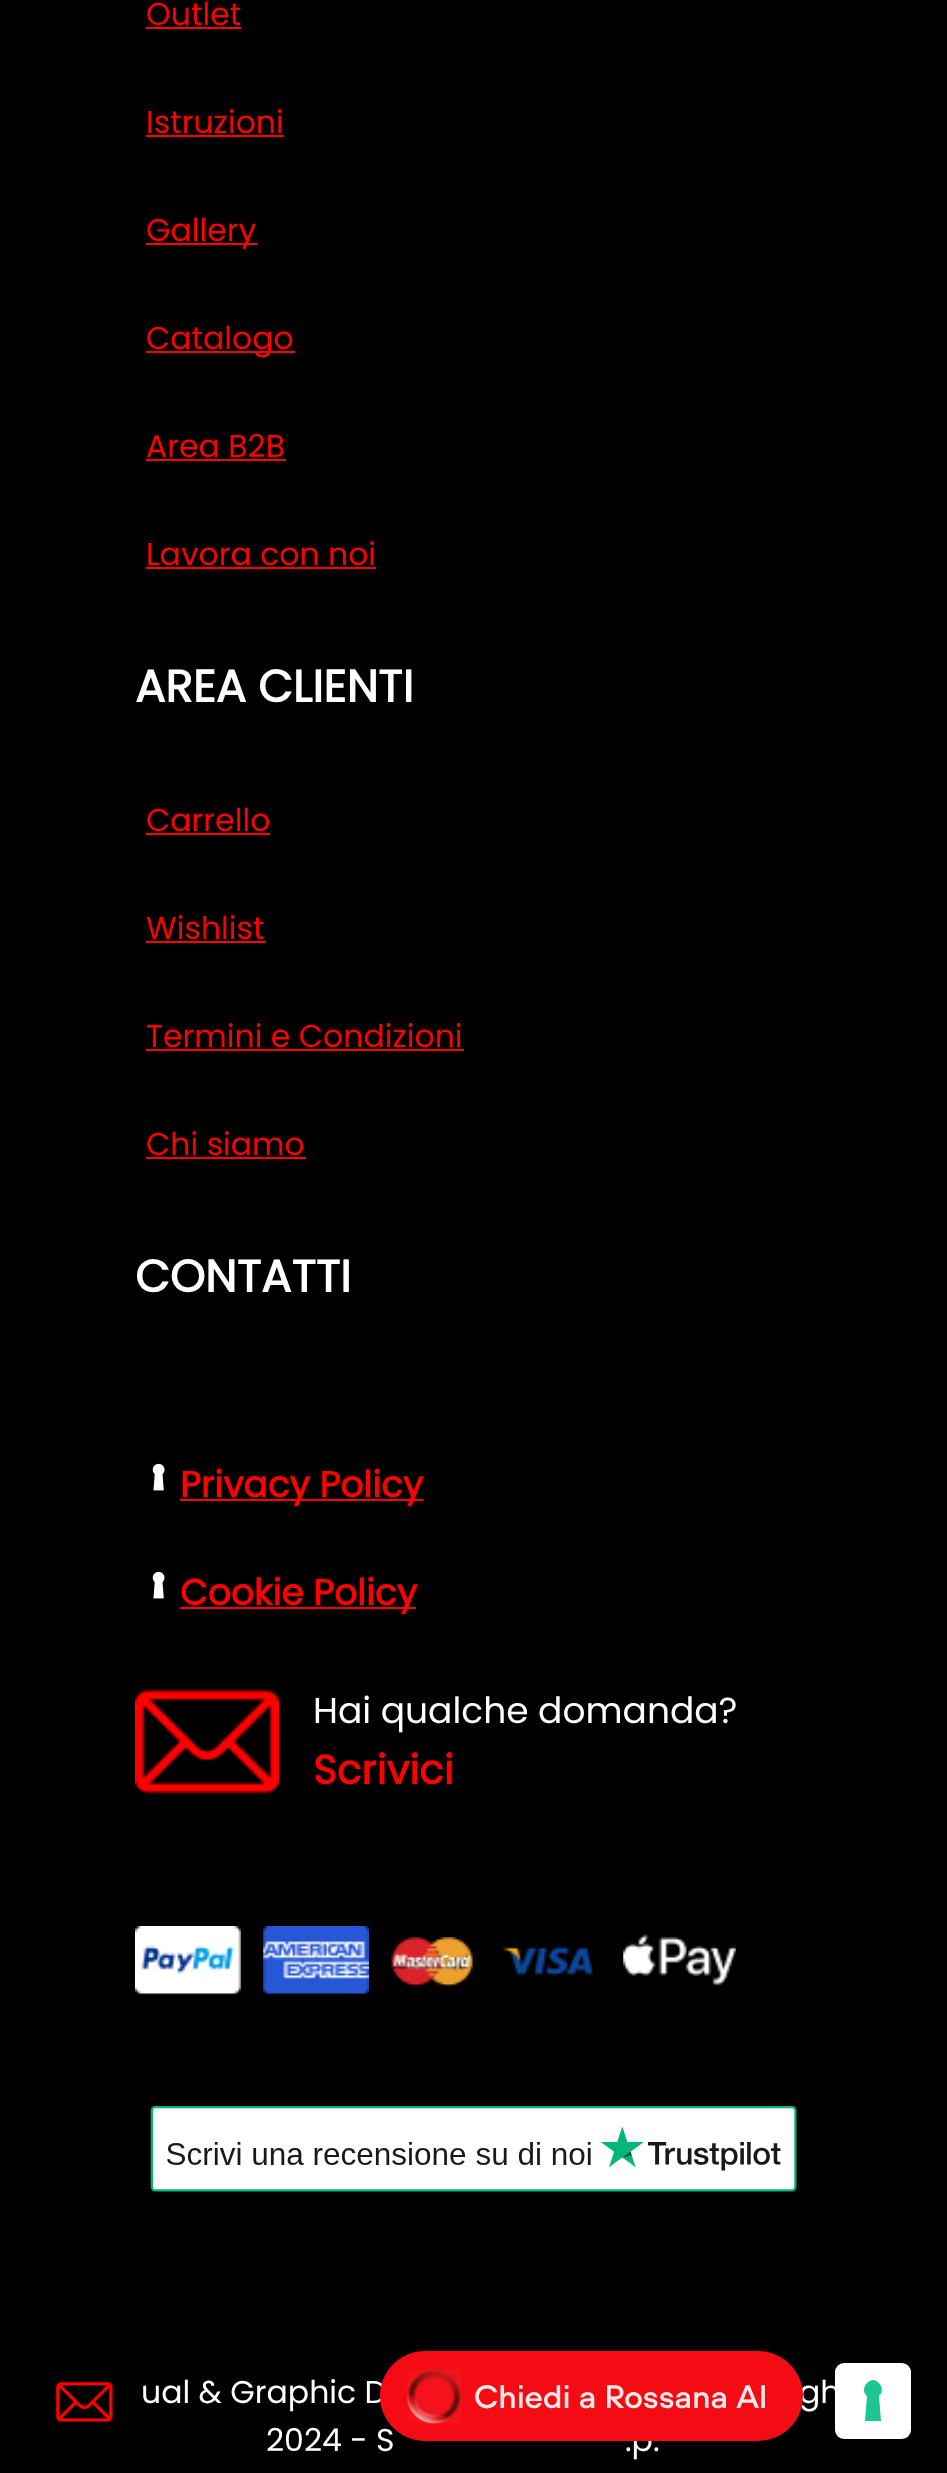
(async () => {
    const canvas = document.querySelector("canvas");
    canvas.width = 947;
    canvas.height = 2473;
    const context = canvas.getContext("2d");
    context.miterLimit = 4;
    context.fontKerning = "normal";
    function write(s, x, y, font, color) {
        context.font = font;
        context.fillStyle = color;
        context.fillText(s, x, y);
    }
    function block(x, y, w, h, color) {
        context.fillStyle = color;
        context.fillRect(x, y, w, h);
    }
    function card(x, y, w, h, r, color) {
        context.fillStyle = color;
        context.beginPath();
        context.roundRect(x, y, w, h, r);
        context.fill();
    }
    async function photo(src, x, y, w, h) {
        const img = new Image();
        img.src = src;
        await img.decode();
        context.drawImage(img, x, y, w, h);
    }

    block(0, 0, 947, 2473, "rgb(0, 0, 0)");
    await photo("media/1.png", 56, 2381, 57, 42);
    write("Outlet", 146, 25, "31.5px Poppins", "rgb(255, 0, 0)");
    block(146, 27, 95, 2, "rgb(255, 0, 0)");
    write("Istruzioni", 146, 133, "31.5px Poppins", "rgb(255, 0, 0)");
    block(146, 135, 138, 2, "rgb(255, 0, 0)");
    block(146, 243, 111, 2, "rgb(255, 0, 0)");
    write("Gallery", 146, 241, "31.5px Poppins", "rgb(255, 0, 0)");
    block(146, 351, 149, 2, "rgb(255, 0, 0)");
    write("Catalogo", 146, 349, "31.5px Poppins", "rgb(255, 0, 0)");
    write("Area B2B", 146, 457, "31.5px Poppins", "rgb(255, 0, 0)");
    block(146, 459, 140, 2, "rgb(255, 0, 0)");
    write("Lavora con noi", 146, 565, "31.5px Poppins", "rgb(255, 0, 0)");
    block(146, 567, 230, 2, "rgb(255, 0, 0)");
    write("AREA CLIENTI", 135, 702, "bold 45px Poppins", "rgb(255, 255, 255)");
    write("Carrello", 146, 831, "31.5px Poppins", "rgb(255, 0, 0)");
    block(146, 833, 124, 2, "rgb(255, 0, 0)");
    write("Wishlist", 146, 939, "31.5px Poppins", "rgb(255, 0, 0)");
    block(146, 941, 120, 2, "rgb(255, 0, 0)");
    write("Termini e Condizioni", 146, 1047, "31.5px Poppins", "rgb(255, 0, 0)");
    block(146, 1049, 318, 2, "rgb(255, 0, 0)");
    write("Chi siamo", 146, 1155, "31.5px Poppins", "rgb(255, 0, 0)");
    block(146, 1157, 160, 2, "rgb(255, 0, 0)");
    write("CONTATTI", 135, 1292, "bold 45px Poppins", "rgb(255, 255, 255)");
    await photo("media/2.png", 152, 1463, 13, 28);
    block(180, 1499, 243, 2, "rgb(255, 0, 0)");
    write("Privacy Policy", 180, 1497, "bold 36px Poppins", "rgb(255, 0, 0)");
    await photo("media/2.png", 152, 1571, 13, 28);
    block(180, 1607, 236, 2, "rgb(255, 0, 0)");
    write("Cookie Policy", 180, 1605, "bold 36px Poppins", "rgb(255, 0, 0)");
    await photo("media/3.png", 135, 1689, 144, 105);
    write("Hai qualche domanda?", 313, 1723, "36px Poppins", "rgb(255, 255, 255)");
    write("Scrivici", 313, 1784, "bold 40.5px Poppins", "rgb(255, 0, 0)");
    await photo("media/4.png", 135, 1926, 106, 69);
    await photo("media/5.png", 263, 1926, 106, 69);
    await photo("media/6.png", 391, 1937, 82, 50);
    await photo("media/7.png", 501, 1945, 94, 31);
    await photo("media/8.png", 623, 1934, 113, 52);
    await photo("media/9.png", 150, 2106, 647, 86);
    write("ual & Graphic D", 141, 2403, "31.5px Poppins", "rgb(255, 255, 255)");
    write("gh", 799, 2403, "31.5px Poppins", "rgb(255, 255, 255)");
    write("2024 - S", 266, 2451, "31.5px Poppins", "rgb(255, 255, 255)");
    write(".p.", 625, 2451, "31.5px Poppins", "rgb(255, 255, 255)");
    context.beginPath();
    context.roundRect(834, 2361, 79, 79, 10);
    context.strokeStyle = "rgba(0, 0, 0, 0.15)";
    context.lineWidth = 2;
    context.stroke();
    card(835, 2363, 76, 76, 9, "rgb(255, 255, 255)");
    context.fillStyle = "rgb(28, 198, 145)";
    context.beginPath();
    context.moveTo(873, 2380);
    context.bezierCurveTo(881, 2381, 885, 2391, 879, 2396);
    context.lineTo(881, 2421);
    context.lineTo(865, 2421);
    context.lineTo(867, 2396);
    context.bezierCurveTo(861, 2391, 865, 2381, 873, 2380);
    context.closePath();
    context.fill("evenodd");
    context.fillStyle = "rgba(22, 26, 30, 0.08)";
    context.filter = "blur(9px)";
    context.beginPath();
    context.roundRect(394, 2374, 396, 63, 31.5);
    context.fill();
    context.filter = "none";
    context.strokeStyle = "rgba(22, 26, 30, 0.04)";
    context.strokeRect(379, 2350, 426, 93);
    card(380, 2351, 423, 90, 45, "rgb(244, 11, 20)");
    await photo("media/10.png", 407, 2369, 55, 55);
    write("Chiedi a Rossana AI", 474, 2408, "600 31.5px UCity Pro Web", "rgb(242, 233, 233)");
})();
